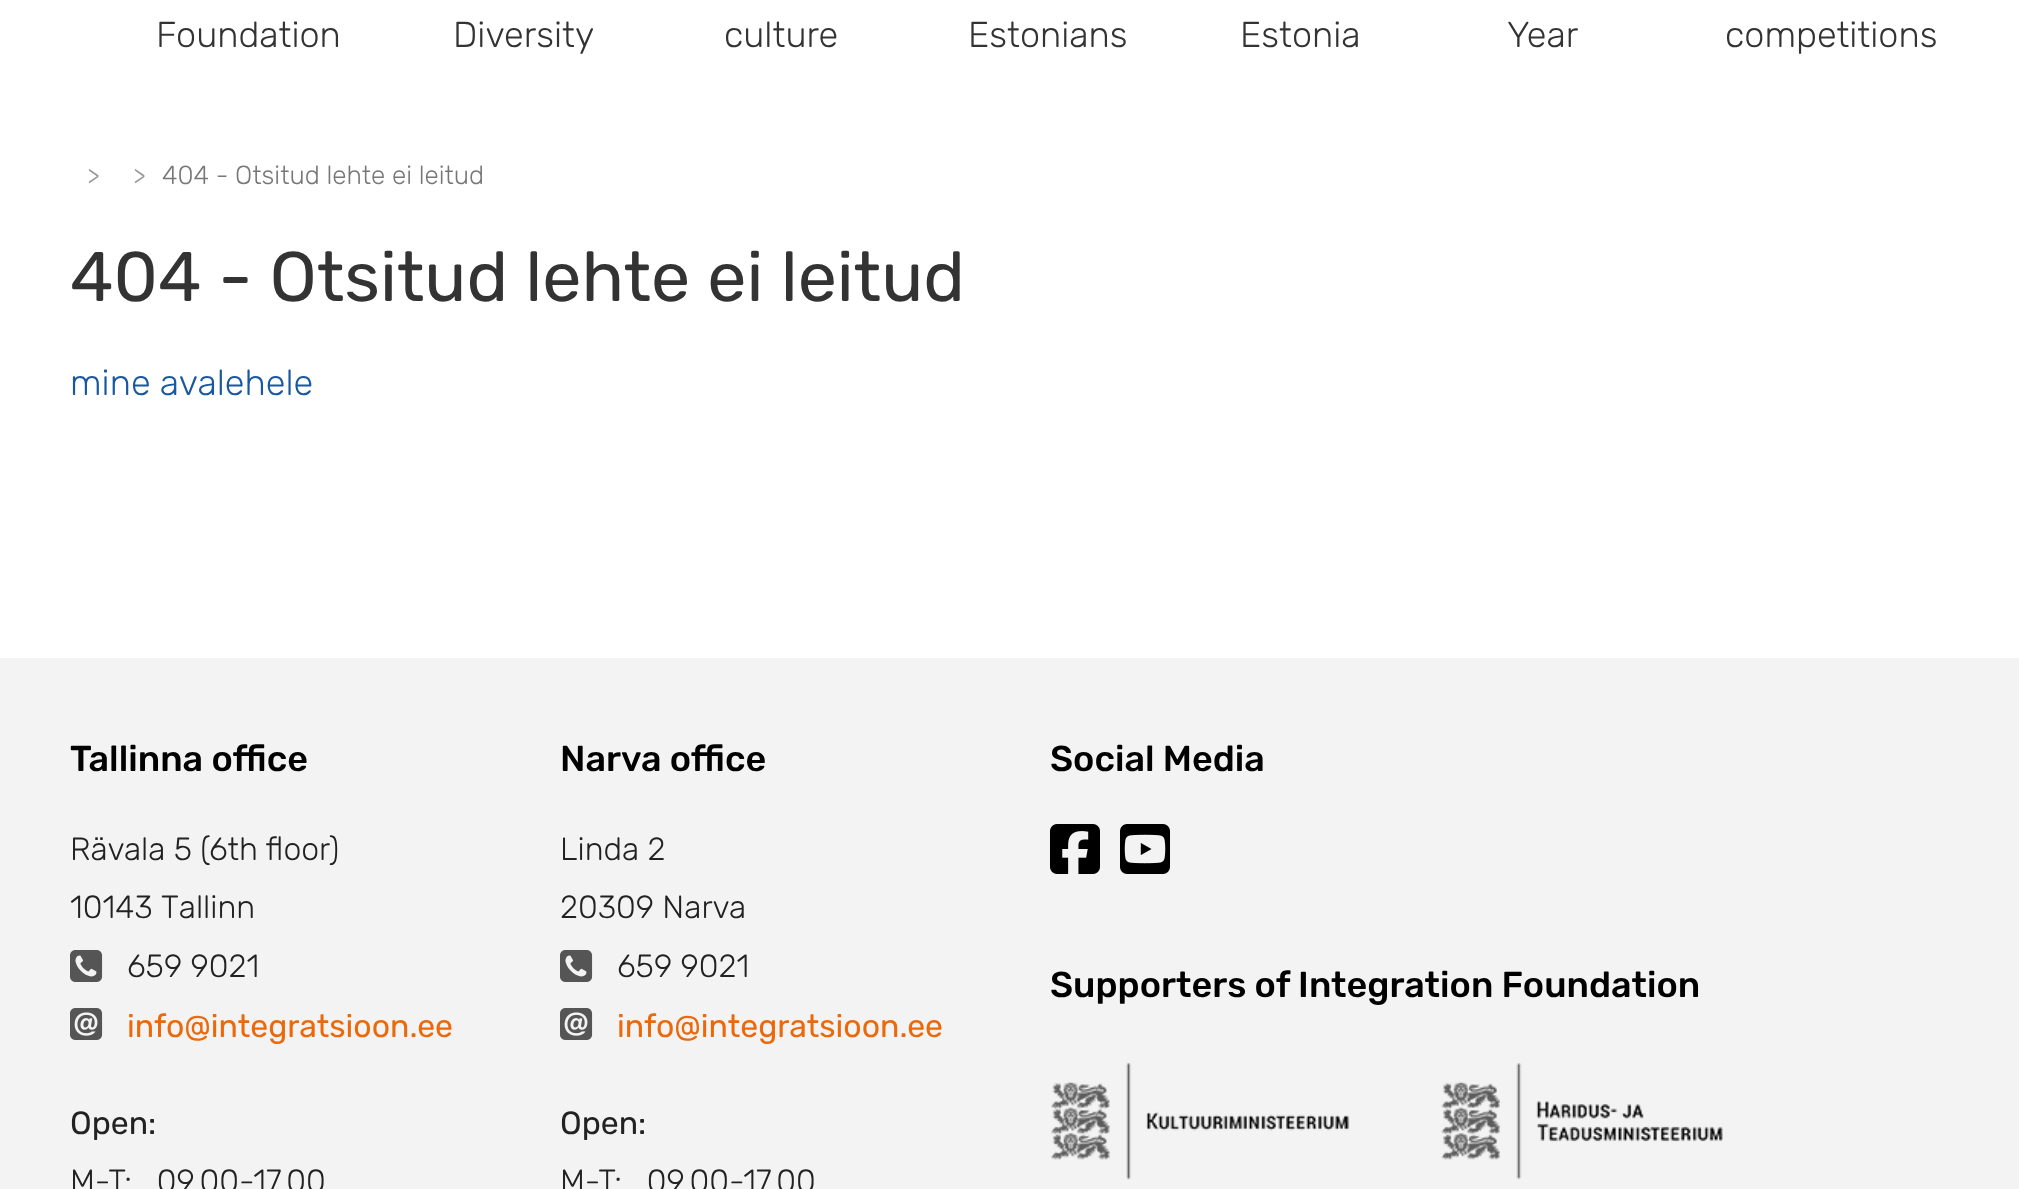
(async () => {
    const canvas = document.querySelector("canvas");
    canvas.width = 2019;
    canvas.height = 1189;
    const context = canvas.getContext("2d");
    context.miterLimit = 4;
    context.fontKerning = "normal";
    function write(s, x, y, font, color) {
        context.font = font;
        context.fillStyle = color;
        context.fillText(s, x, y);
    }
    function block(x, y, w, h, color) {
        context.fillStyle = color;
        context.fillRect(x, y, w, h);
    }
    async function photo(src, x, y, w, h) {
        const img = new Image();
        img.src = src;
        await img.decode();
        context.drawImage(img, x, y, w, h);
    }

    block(0, 0, 2019, 1189, "rgb(255, 255, 255)");
    write("Foundation", 156, 47, "300 36px Rubik", "rgb(51, 51, 51)");
    write("Diversity", 453, 47, "300 36px Rubik", "rgb(51, 51, 51)");
    write("culture", 724, 47, "300 36px Rubik", "rgb(51, 51, 51)");
    write("Estonians", 968, 47, "300 36px Rubik", "rgb(51, 51, 51)");
    write("Estonia", 1240, 47, "300 36px Rubik", "rgb(51, 51, 51)");
    write("Year", 1507, 47, "300 36px Rubik", "rgb(51, 51, 51)");
    write("competitions", 1725, 47, "300 36px Rubik", "rgb(51, 51, 51)");
    write(">", 87, 184, "300 26px Rubik", "rgb(151, 151, 151)");
    write(">", 133, 184, "300 26px Rubik", "rgb(151, 151, 151)");
    write("404 - Otsitud lehte ei leitud", 162, 184, "300 26px Rubik", "rgb(119, 119, 119)");
    write("404 - Otsitud lehte ei leitud", 70, 301, "70px Rubik", "rgb(51, 51, 51)");
    write("mine avalehele", 70, 395, "300 36px Rubik", "rgb(25, 88, 159)");
    block(0, 658, 2019, 531, "rgb(243, 243, 243)");
    write("Tallinna office", 70, 771, "500 36px Rubik", "rgb(0, 0, 0)");
    write("Rävala 5 (6th floor)", 70, 860, "300 32px Rubik", "rgb(34, 34, 34)");
    write("10143 Тallinn", 70, 918, "300 32px Rubik", "rgb(34, 34, 34)");
    await photo("media/1.png", 70, 950, 33, 32);
    write("659 9021", 127, 977, "300 32px Rubik", "rgb(34, 34, 34)");
    await photo("media/2.png", 70, 1008, 33, 32);
    write("info@integratsioon.ee", 127, 1037, "32px Rubik", "rgb(235, 105, 10)");
    write("Open:", 70, 1134, "32px Rubik", "rgb(34, 34, 34)");
    write("M-T:   09.00-17.00", 70, 1192, "300 32px Rubik", "rgb(34, 34, 34)");
    write("Narva office", 560, 771, "500 36px Rubik", "rgb(0, 0, 0)");
    write("Linda 2", 560, 860, "300 32px Rubik", "rgb(34, 34, 34)");
    write("20309 Narva", 560, 918, "300 32px Rubik", "rgb(34, 34, 34)");
    await photo("media/1.png", 560, 950, 33, 32);
    write("659 9021", 617, 977, "300 32px Rubik", "rgb(34, 34, 34)");
    await photo("media/2.png", 560, 1008, 33, 32);
    write("info@integratsioon.ee", 617, 1037, "32px Rubik", "rgb(235, 105, 10)");
    write("Open:", 560, 1134, "32px Rubik", "rgb(34, 34, 34)");
    write("M-T:   09.00-17.00", 560, 1192, "300 32px Rubik", "rgb(34, 34, 34)");
    write("Social Media", 1050, 771, "500 36px Rubik", "rgb(0, 0, 0)");
    await photo("media/3.png", 1050, 824, 50, 50);
    await photo("media/4.png", 1120, 824, 50, 50);
    write("Supporters of Integration Foundation", 1050, 997, "500 36px Rubik", "rgb(0, 0, 0)");
    await photo("media/5.png", 1051, 1063, 672, 117);
})();
